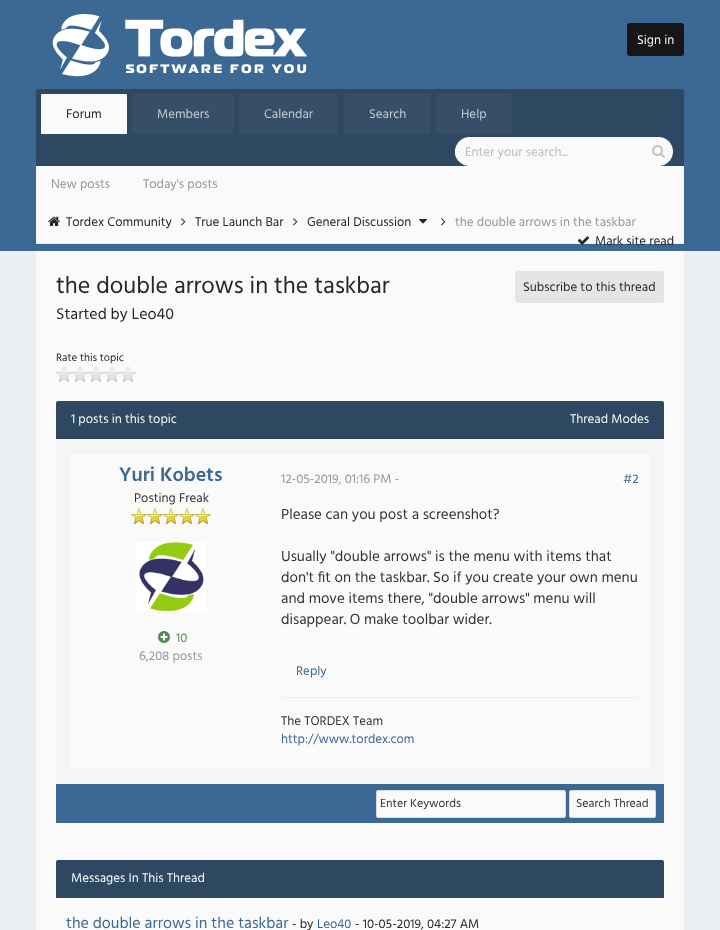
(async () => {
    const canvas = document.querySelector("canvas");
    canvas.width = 720;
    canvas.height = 930;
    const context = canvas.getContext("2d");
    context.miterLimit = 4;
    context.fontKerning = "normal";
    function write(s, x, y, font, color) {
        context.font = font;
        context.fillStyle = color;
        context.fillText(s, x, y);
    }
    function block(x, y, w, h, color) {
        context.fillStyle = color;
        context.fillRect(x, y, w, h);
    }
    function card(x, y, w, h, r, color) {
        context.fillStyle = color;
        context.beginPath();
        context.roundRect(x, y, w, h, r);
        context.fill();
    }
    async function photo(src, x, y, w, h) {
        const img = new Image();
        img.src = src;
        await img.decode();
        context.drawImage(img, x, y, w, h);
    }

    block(0, 0, 720, 930, "rgb(235, 238, 242)");
    block(0, 0, 720, 251, "rgb(60, 105, 148)");
    await photo("media/1.png", 52, 14, 256, 63);
    card(627, 23, 57, 33, 3, "rgb(22, 22, 22)");
    write("Sign in", 637, 44, "13px Hind", "rgb(250, 250, 250)");
    context.fillStyle = "rgb(46, 72, 97)";
    context.beginPath();
    context.roundRect(36, 89, 648, 77, [2, 2, 0, 0]);
    context.fill();
    context.fillStyle = "rgb(250, 250, 250)";
    context.beginPath();
    context.roundRect(41, 94, 86, 40, [1, 1, 0, 0]);
    context.fill();
    write("Forum", 66, 118, "13px Hind", "rgb(38, 38, 38)");
    context.fillStyle = "rgb(54, 79, 103)";
    context.beginPath();
    context.roundRect(132, 94, 102, 40, [1, 1, 0, 0]);
    context.fill();
    write("Members", 157, 118, "13px Hind", "rgb(195, 202, 209)");
    context.fillStyle = "rgb(54, 79, 103)";
    context.beginPath();
    context.roundRect(239, 94, 99, 40, [1, 1, 0, 0]);
    context.fill();
    write("Calendar", 264, 118, "13px Hind", "rgb(195, 202, 209)");
    context.fillStyle = "rgb(54, 79, 103)";
    context.beginPath();
    context.roundRect(344, 94, 87, 40, [1, 1, 0, 0]);
    context.fill();
    write("Search", 369, 118, "13px Hind", "rgb(195, 202, 209)");
    context.fillStyle = "rgb(54, 79, 103)";
    context.beginPath();
    context.roundRect(436, 94, 76, 40, [1, 1, 0, 0]);
    context.fill();
    write("Help", 461, 118, "13px Hind", "rgb(195, 202, 209)");
    card(455, 137, 218, 29, 14.5, "rgb(250, 250, 250)");
    card(455, 142, 186, 21, 10.5, "rgb(250, 250, 250)");
    write("Enter your search...", 465, 156, "13px Hind", "rgb(188, 188, 188)");
    await photo("media/2.png", 652, 145, 13, 13);
    block(36, 166, 648, 77, "rgb(250, 250, 250)");
    write("New posts", 51, 188, "13px Hind", "rgb(150, 150, 150)");
    write("Today's posts", 143, 188, "13px Hind", "rgb(150, 150, 150)");
    block(36, 243, 648, 1, "rgb(236, 236, 236)");
    await photo("media/3.png", 48, 216, 12, 10);
    write("Tordex Community", 66, 226, "13px Hind", "rgb(38, 38, 38)");
    await photo("media/4.png", 181, 218, 5, 8);
    write("True Launch Bar", 195, 226, "13px Hind", "rgb(38, 38, 38)");
    await photo("media/4.png", 293, 218, 5, 8);
    write("General Discussion", 307, 226, "13px Hind", "rgb(38, 38, 38)");
    await photo("media/5.png", 419, 219, 8, 5);
    await photo("media/4.png", 441, 218, 5, 8);
    write("the double arrows in the taskbar", 455, 226, "13px Hind", "rgb(150, 150, 150)");
    await photo("media/6.png", 577, 236, 13, 9);
    write("Mark site read", 595, 245, "13px Hind", "rgb(38, 38, 38)");
    block(36, 251, 648, 679, "rgb(250, 250, 250)");
    write("the double arrows in the taskbar", 56, 293, "24px Hind", "rgb(38, 38, 38)");
    write("Started by Leo40", 56, 319, "16px Hind", "rgb(38, 38, 38)");
    card(515, 271, 149, 32, 3, "rgb(229, 229, 229)");
    write("Subscribe to this thread", 523, 291, "13px Hind", "rgb(38, 38, 38)");
    write("Rate this topic", 56, 361, "11px Hind", "rgb(38, 38, 38)");
    await photo("media/7.png", 56, 366, 80, 16);
    context.fillStyle = "rgb(46, 72, 97)";
    context.beginPath();
    context.roundRect(56, 401, 608, 38, [2, 2, 0, 0]);
    context.fill();
    write("1 posts in this topic", 71, 423, "13px Hind", "rgb(250, 250, 250)");
    write("Thread Modes", 570, 423, "13px Hind", "rgb(250, 250, 250)");
    block(56, 439, 608, 345, "rgb(245, 245, 245)");
    block(71, 454, 578, 315, "rgb(250, 250, 250)");
    write("Yuri Kobets", 119, 481, "600 20px Hind", "rgb(60, 105, 148)");
    write("Posting Freak", 134, 502, "13px Hind", "rgb(50, 50, 50)");
    await photo("media/8.png", 131, 508, 16, 16);
    await photo("media/8.png", 147, 508, 16, 16);
    await photo("media/8.png", 163, 508, 16, 16);
    await photo("media/8.png", 179, 508, 16, 16);
    await photo("media/8.png", 195, 508, 16, 16);
    await photo("media/9.png", 136, 542, 70, 70);
    await photo("media/10.png", 158, 631, 12, 12);
    write("10", 176, 642, "13px Hind", "rgb(88, 136, 87)");
    write("6,208 posts", 139, 660, "13px Hind", "rgb(150, 150, 150)");
    write("12-05-2019, 01:16 PM -", 281, 483, "13px Hind", "rgb(150, 150, 150)");
    write("#2", 623, 483, "13px Hind", "rgb(60, 105, 148)");
    write("Please can you post a screenshot?", 281, 519, "15px Hind", "rgb(50, 50, 50)");
    write("Usually \"double arrows\" is the menu with items that", 281, 561, "15px Hind", "rgb(50, 50, 50)");
    write("don't fit on the taskbar. So if you create your own menu", 281, 582, "15px Hind", "rgb(50, 50, 50)");
    write("and move items there, \"double arrows\" menu will", 281, 603, "15px Hind", "rgb(50, 50, 50)");
    write("disappear. O make toolbar wider.", 281, 624, "15px Hind", "rgb(50, 50, 50)");
    write("Reply", 296, 675, "13px Hind", "rgb(60, 105, 148)");
    block(281, 697, 358, 1, "rgb(238, 238, 238)");
    write("The TORDEX Team", 281, 725, "13px Hind", "rgb(50, 50, 50)");
    write("http://www.tordex.com", 281, 743, "13px Hind", "rgb(60, 105, 148)");
    block(56, 784, 608, 39, "rgb(60, 105, 148)");
    context.fillStyle = "rgb(250, 250, 250)";
    context.beginPath();
    context.roundRect(376.5, 790.5, 189, 27, 1.5);
    context.fill();
    context.strokeStyle = "rgb(216, 216, 216)";
    context.stroke();
    write("Enter Keywords", 380, 807, "12px Hind", "rgb(50, 50, 50)");
    context.fillStyle = "rgb(250, 250, 250)";
    context.beginPath();
    context.roundRect(569.5, 790.5, 86, 27, 1.5);
    context.fill();
    context.stroke();
    write("Search Thread", 576, 807, "12px Hind", "rgb(50, 50, 50)");
    context.fillStyle = "rgb(46, 72, 97)";
    context.beginPath();
    context.roundRect(56, 860, 608, 38, [2, 2, 0, 0]);
    context.fill();
    write("Messages In This Thread", 71, 882, "13px Hind", "rgb(250, 250, 250)");
    write("the double arrows in the taskbar", 66, 928, "16px Hind", "rgb(60, 105, 148)");
    write("- by", 292, 928, "13px Hind", "rgb(38, 38, 38)");
    write("Leo40", 317, 928, "13px Hind", "rgb(60, 105, 148)");
    write("- 10-05-2019, 04:27 AM", 355, 928, "13px Hind", "rgb(38, 38, 38)");
})();
